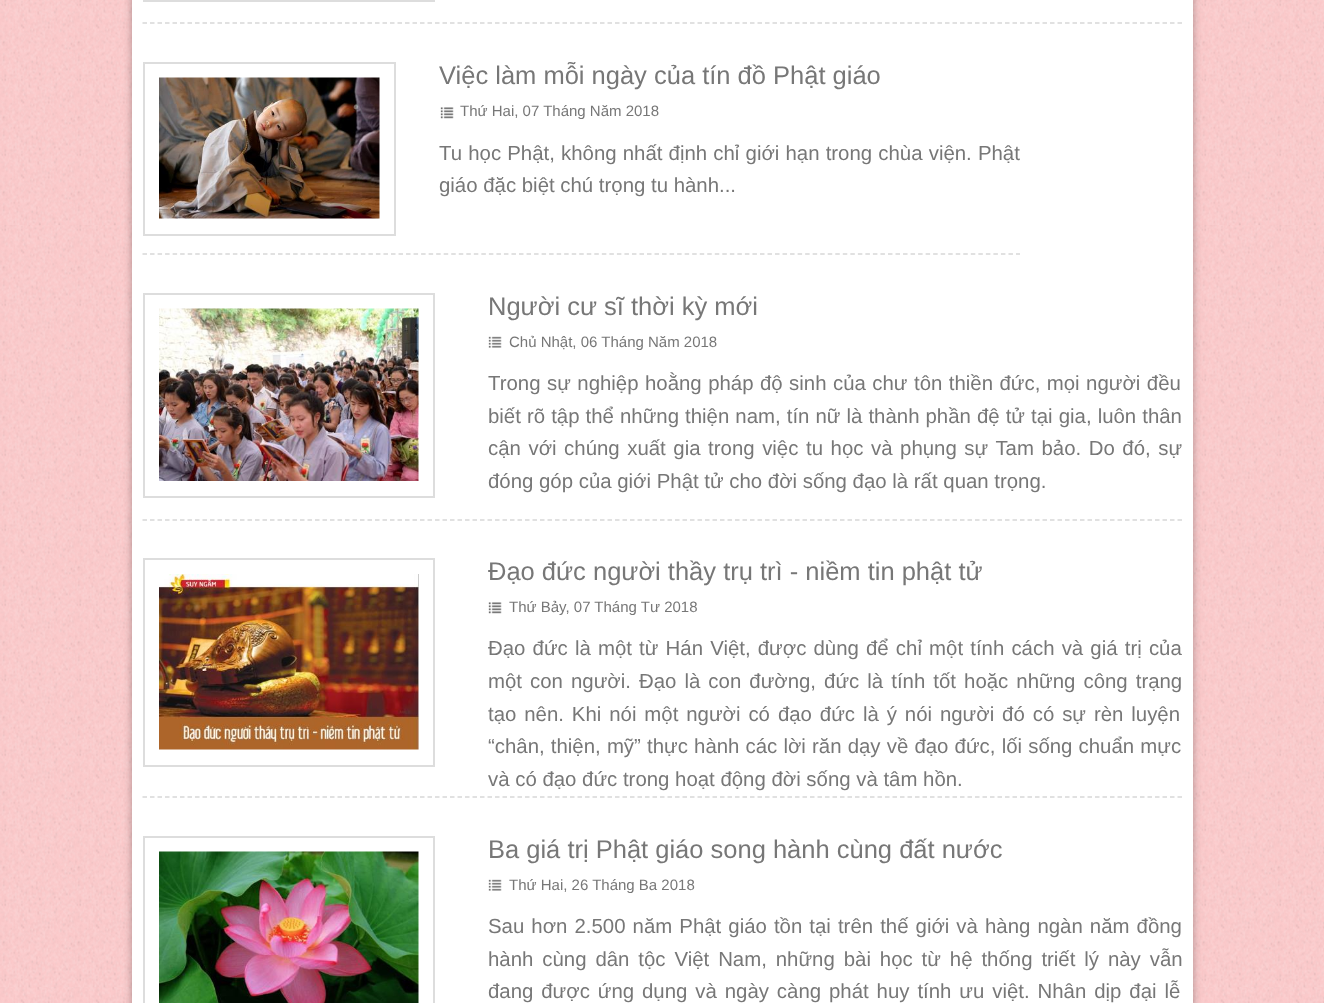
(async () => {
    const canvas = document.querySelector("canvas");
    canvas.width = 1324;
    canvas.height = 1003;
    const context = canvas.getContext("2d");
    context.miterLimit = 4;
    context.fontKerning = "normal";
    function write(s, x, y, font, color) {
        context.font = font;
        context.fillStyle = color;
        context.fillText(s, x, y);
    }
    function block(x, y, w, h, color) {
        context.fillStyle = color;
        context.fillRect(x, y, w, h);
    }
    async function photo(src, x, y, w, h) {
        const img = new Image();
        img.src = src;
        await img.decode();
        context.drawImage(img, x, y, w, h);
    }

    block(0, 0, 1324, 1003, "rgb(251, 201, 202)");
    await photo("media/1.png", 0, 0, 1324, 1003);
    context.fillStyle = "rgba(0, 0, 0, 0.3)";
    context.filter = "blur(4px)";
    context.beginPath();
    context.rect(132, -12, 1061, 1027);
    context.fill();
    context.filter = "none";
    block(132, 0, 1061, 1003, "rgb(255, 255, 255)");
    context.beginPath();
    context.moveTo(142.5, 23);
    context.lineTo(1182, 23);
    context.strokeStyle = "rgb(215, 215, 215)";
    context.lineWidth = 1.5;
    context.setLineDash([4.5, 3]);
    context.stroke();
    context.strokeStyle = "rgb(221, 221, 221)";
    context.lineWidth = 2;
    context.setLineDash([]);
    context.strokeRect(144, -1, 290, 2);
    context.beginPath();
    context.moveTo(142.5, 254);
    context.lineTo(1020, 254);
    context.strokeStyle = "rgb(215, 215, 215)";
    context.lineWidth = 1.5;
    context.setLineDash([4.5, 3.03]);
    context.stroke();
    context.strokeStyle = "rgb(221, 221, 221)";
    context.lineWidth = 2;
    context.setLineDash([]);
    context.strokeRect(144, 63, 251, 172);
    await photo("media/2.png", 159, 77, 221, 142);
    write("Việc làm mỗi ngày của tín đồ Phật giáo", 439, 84, "25.5px Liberation Sans", "rgb(119, 119, 119)");
    await photo("media/3.png", 440, 107, 14, 12);
    write("Thứ Hai, 07 Tháng Năm 2018", 460, 116, "15px Liberation Sans", "rgb(119, 119, 119)");
    context.wordSpacing = "0.5px";
    write("Tu học Phật, không nhất định chỉ giới hạn trong chùa viện. Phật", 439, 160, "20.4px Liberation Sans", "rgb(119, 119, 119)");
    context.wordSpacing = "0px";
    write("giáo đặc biệt chú trọng tu hành...", 439, 192, "20.4px Liberation Sans", "rgb(119, 119, 119)");
    context.beginPath();
    context.moveTo(142.5, 520);
    context.lineTo(1182, 520);
    context.strokeStyle = "rgb(215, 215, 215)";
    context.lineWidth = 1.5;
    context.setLineDash([4.5, 3]);
    context.stroke();
    context.strokeStyle = "rgb(221, 221, 221)";
    context.lineWidth = 2;
    context.setLineDash([]);
    context.strokeRect(144, 294, 290, 203);
    await photo("media/4.png", 159, 308, 260, 173);
    write("Người cư sĩ thời kỳ mới", 488, 315, "25.5px Liberation Sans", "rgb(119, 119, 119)");
    await photo("media/5.png", 488, 336, 14, 12);
    write("Chủ Nhật, 06 Tháng Năm 2018", 509, 347, "15px Liberation Sans", "rgb(119, 119, 119)");
    context.wordSpacing = "0.8px";
    write("Trong sự nghiệp hoằng pháp độ sinh của chư tôn thiền đức, mọi người đều", 488, 390, "20.4px Liberation Sans", "rgb(119, 119, 119)");
    context.wordSpacing = "0.4px";
    write("biết rõ tập thể những thiện nam, tín nữ là thành phần đệ tử tại gia, luôn thân", 488, 423, "20.4px Liberation Sans", "rgb(119, 119, 119)");
    context.wordSpacing = "1.9px";
    write("cận với chúng xuất gia trong việc tu học và phụng sự Tam bảo. Do đó, sự", 488, 455, "20.4px Liberation Sans", "rgb(119, 119, 119)");
    context.wordSpacing = "0px";
    write("đóng góp của giới Phật tử cho đời sống đạo là rất quan trọng.", 488, 488, "20.4px Liberation Sans", "rgb(119, 119, 119)");
    context.beginPath();
    context.moveTo(142.5, 797);
    context.lineTo(1182, 797);
    context.strokeStyle = "rgb(215, 215, 215)";
    context.lineWidth = 1.5;
    context.setLineDash([4.5, 3]);
    context.stroke();
    context.strokeStyle = "rgb(221, 221, 221)";
    context.lineWidth = 2;
    context.setLineDash([]);
    context.strokeRect(144, 559, 290, 207);
    await photo("media/6.png", 159, 574, 260, 176);
    write("Đạo đức người thầy trụ trì - niềm tin phật tử", 488, 580, "25.5px Liberation Sans", "rgb(119, 119, 119)");
    await photo("media/3.png", 488, 602, 14, 12);
    write("Thứ Bảy, 07 Tháng Tư 2018", 509, 612, "15px Liberation Sans", "rgb(119, 119, 119)");
    context.wordSpacing = "1.5px";
    write("Đạo đức là một từ Hán Việt, được dùng để chỉ một tính cách và giá trị của", 488, 655, "20.4px Liberation Sans", "rgb(119, 119, 119)");
    context.wordSpacing = "2.4px";
    write("một con người. Đạo là con đường, đức là tính tốt hoặc những công trạng", 488, 688, "20.4px Liberation Sans", "rgb(119, 119, 119)");
    context.wordSpacing = "2.25px";
    write("tạo nên. Khi nói một người có đạo đức là ý nói người đó có sự rèn luyện", 488, 721, "20.4px Liberation Sans", "rgb(119, 119, 119)");
    context.wordSpacing = "0.5px";
    write("“chân, thiện, mỹ” thực hành các lời răn dạy về đạo đức, lối sống chuẩn mực", 488, 753, "20.4px Liberation Sans", "rgb(119, 119, 119)");
    context.wordSpacing = "0px";
    write("và có đạo đức trong hoạt động đời sống và tâm hồn.", 488, 786, "20.4px Liberation Sans", "rgb(119, 119, 119)");
    context.strokeRect(144, 837, 290, 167);
    await photo("media/7.png", 159, 851, 260, 152);
    write("Ba giá trị Phật giáo song hành cùng đất nước", 488, 858, "25.5px Liberation Sans", "rgb(119, 119, 119)");
    await photo("media/5.png", 488, 879, 14, 12);
    write("Thứ Hai, 26 Tháng Ba 2018", 509, 890, "15px Liberation Sans", "rgb(119, 119, 119)");
    context.wordSpacing = "1.4px";
    write("Sau hơn 2.500 năm Phật giáo tồn tại trên thế giới và hàng ngàn năm đồng", 488, 933, "20.4px Liberation Sans", "rgb(119, 119, 119)");
    context.wordSpacing = "3.25px";
    write("hành cùng dân tộc Việt Nam, những bài học từ hệ thống triết lý này vẫn", 488, 966, "20.4px Liberation Sans", "rgb(119, 119, 119)");
    context.wordSpacing = "2.25px";
    write("đang được ứng dụng và ngày càng phát huy tính ưu việt. Nhân dịp đại lễ", 488, 998, "20.4px Liberation Sans", "rgb(119, 119, 119)");
})();
